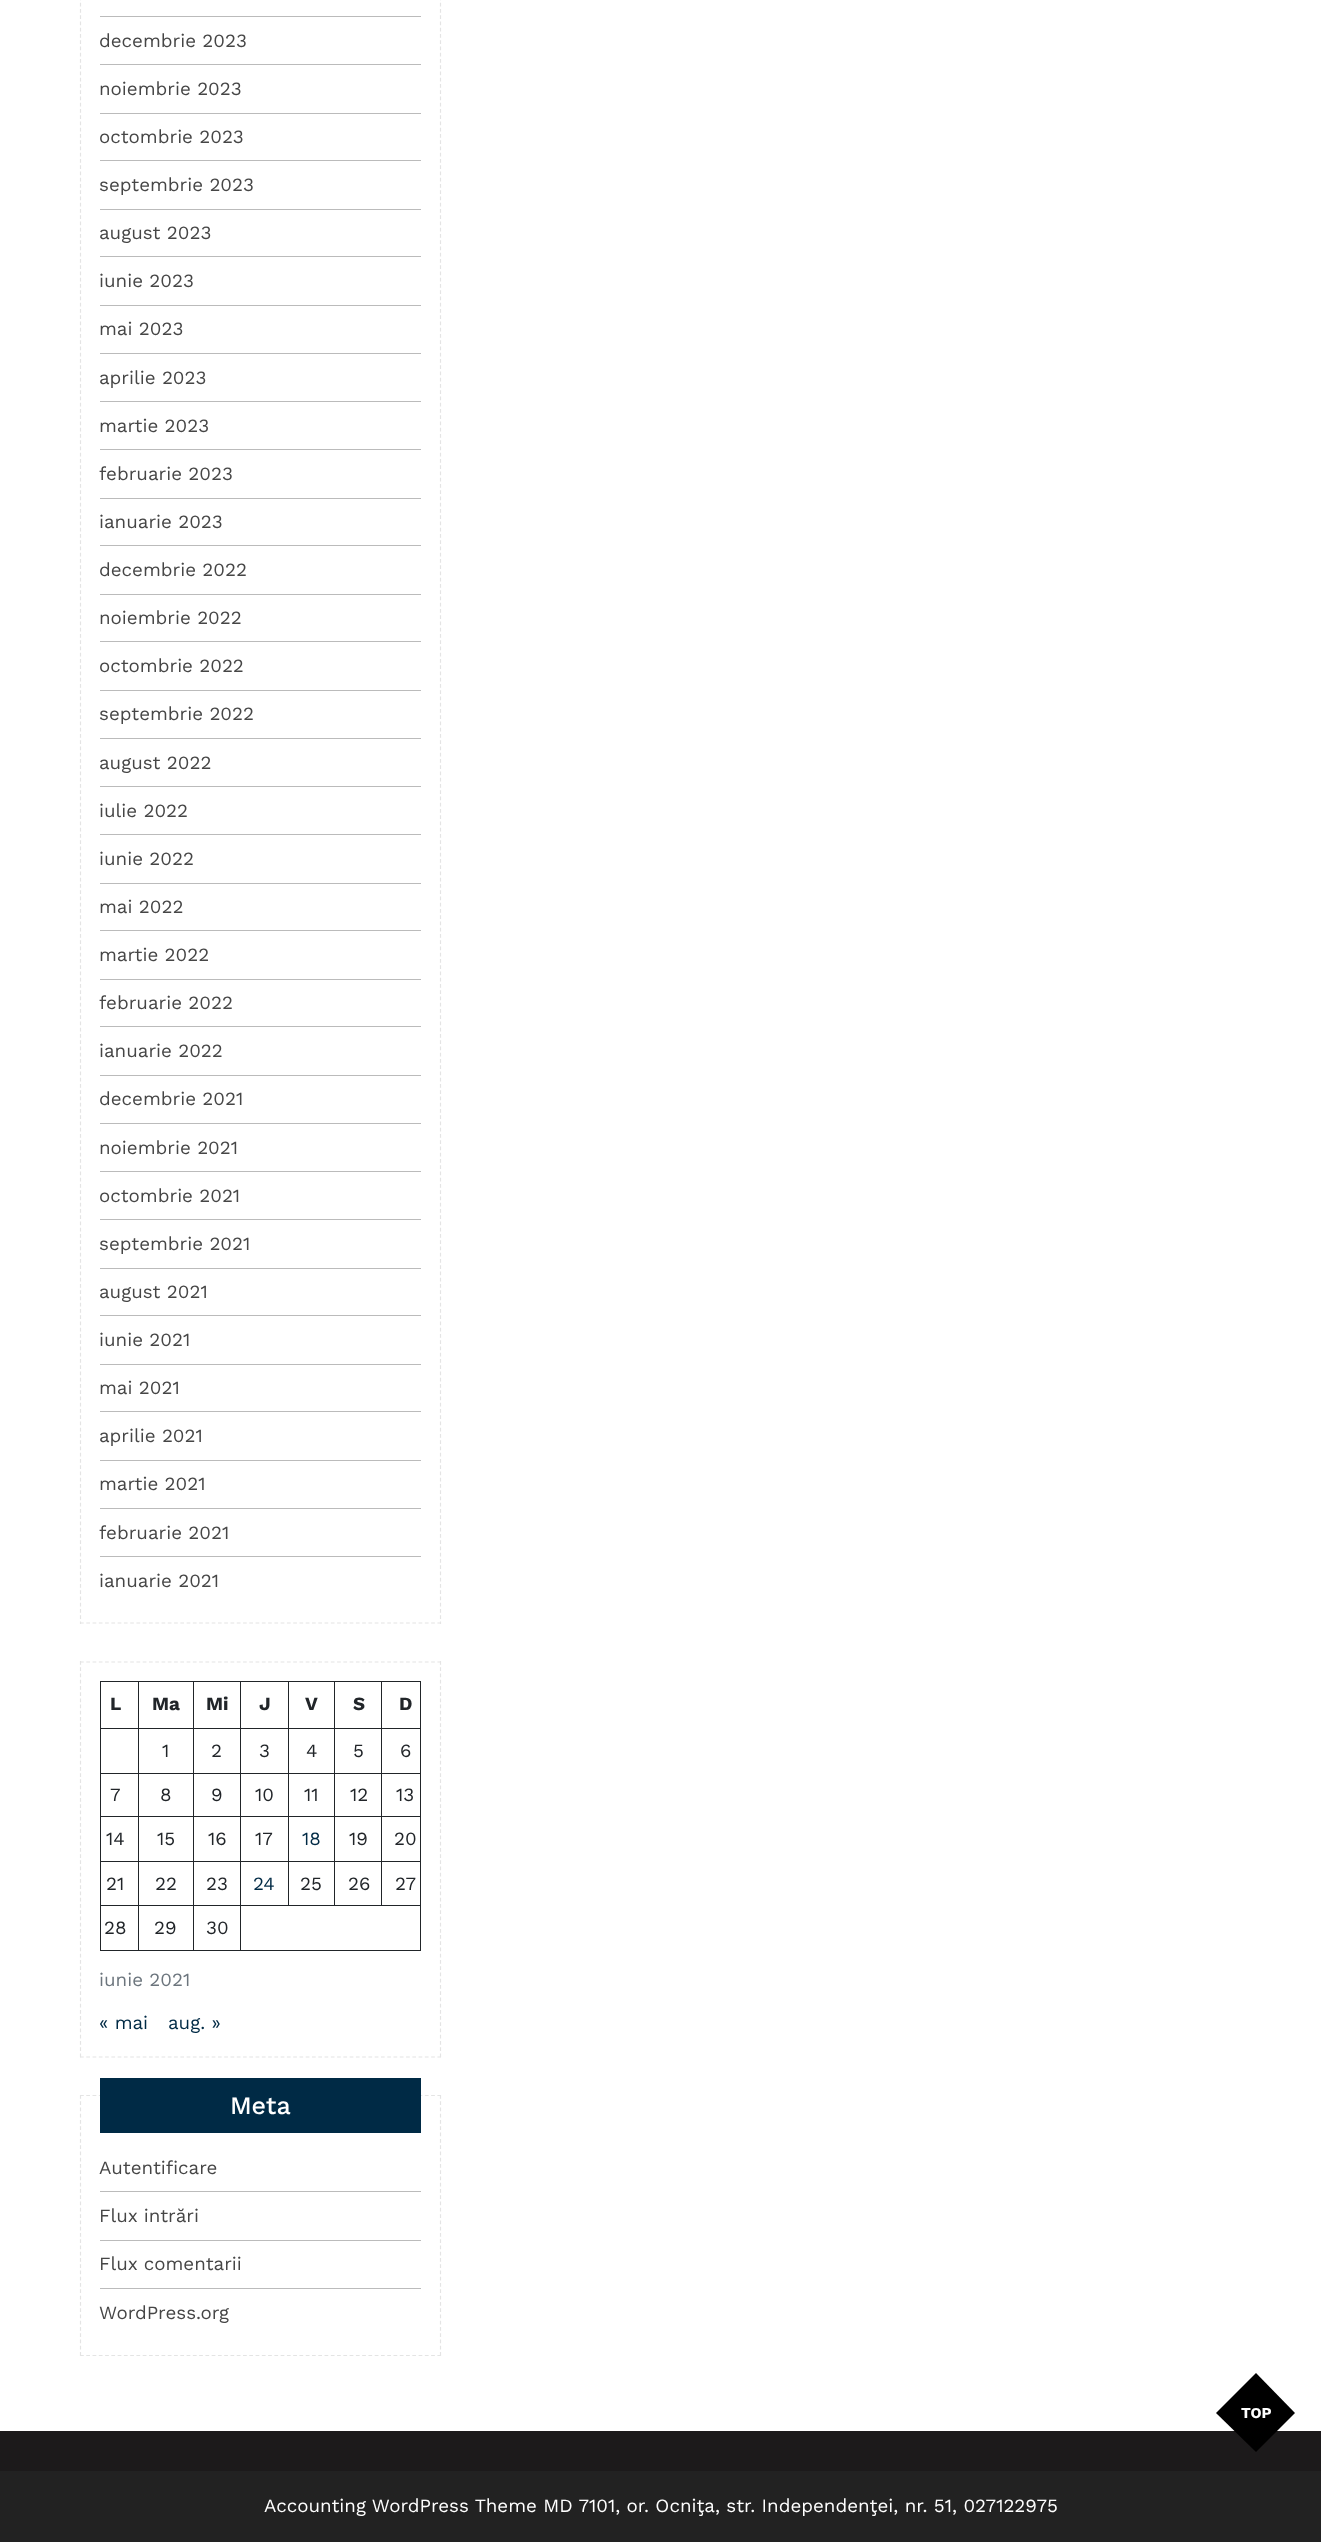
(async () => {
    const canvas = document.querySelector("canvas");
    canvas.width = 1321;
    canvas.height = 2542;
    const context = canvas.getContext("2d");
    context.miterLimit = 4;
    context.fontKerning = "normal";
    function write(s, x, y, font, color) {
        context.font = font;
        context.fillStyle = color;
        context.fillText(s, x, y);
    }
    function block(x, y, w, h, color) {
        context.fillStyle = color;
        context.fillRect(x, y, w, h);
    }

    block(0, 0, 1321, 2542, "rgb(255, 255, 255)");
    context.beginPath();
    context.moveTo(440.5, -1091);
    context.lineTo(440.5, 1624);
    context.strokeStyle = "rgb(228, 228, 228)";
    context.lineWidth = 1.2;
    context.setLineDash([3.75, 2.5]);
    context.stroke();
    context.beginPath();
    context.moveTo(80, 1623);
    context.lineTo(441, 1623);
    context.setLineDash([3.75, 2.52]);
    context.stroke();
    context.beginPath();
    context.moveTo(80.5, -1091);
    context.lineTo(80.5, 1624);
    context.setLineDash([3.75, 2.5]);
    context.stroke();
    block(100, 16, 321, 1, "rgb(187, 187, 187)");
    block(100, 64, 321, 1, "rgb(187, 187, 187)");
    write("decembrie 2023", 99, 47, "18.75px Work Sans", "rgb(70, 70, 70)");
    block(100, 113, 321, 1, "rgb(187, 187, 187)");
    write("noiembrie 2023", 99, 95, "18.75px Work Sans", "rgb(70, 70, 70)");
    block(100, 160, 321, 1, "rgb(187, 187, 187)");
    write("octombrie 2023", 99, 143, "18.75px Work Sans", "rgb(70, 70, 70)");
    block(100, 209, 321, 1, "rgb(187, 187, 187)");
    write("septembrie 2023", 99, 191, "18.75px Work Sans", "rgb(70, 70, 70)");
    block(100, 256, 321, 1, "rgb(187, 187, 187)");
    write("august 2023", 99, 239, "18.75px Work Sans", "rgb(70, 70, 70)");
    block(100, 305, 321, 1, "rgb(187, 187, 187)");
    write("iunie 2023", 99, 287, "18.75px Work Sans", "rgb(70, 70, 70)");
    block(100, 353, 321, 1, "rgb(187, 187, 187)");
    write("mai 2023", 99, 335, "18.75px Work Sans", "rgb(70, 70, 70)");
    block(100, 401, 321, 1, "rgb(187, 187, 187)");
    write("aprilie 2023", 99, 384, "18.75px Work Sans", "rgb(70, 70, 70)");
    block(100, 449, 321, 1, "rgb(187, 187, 187)");
    write("martie 2023", 99, 432, "18.75px Work Sans", "rgb(70, 70, 70)");
    block(100, 498, 321, 1, "rgb(187, 187, 187)");
    write("februarie 2023", 99, 480, "18.75px Work Sans", "rgb(70, 70, 70)");
    block(100, 545, 321, 1, "rgb(187, 187, 187)");
    write("ianuarie 2023", 99, 528, "18.75px Work Sans", "rgb(70, 70, 70)");
    block(100, 594, 321, 1, "rgb(187, 187, 187)");
    write("decembrie 2022", 99, 576, "18.75px Work Sans", "rgb(70, 70, 70)");
    block(100, 641, 321, 1, "rgb(187, 187, 187)");
    write("noiembrie 2022", 99, 624, "18.75px Work Sans", "rgb(70, 70, 70)");
    block(100, 690, 321, 1, "rgb(187, 187, 187)");
    write("octombrie 2022", 99, 672, "18.75px Work Sans", "rgb(70, 70, 70)");
    block(100, 738, 321, 1, "rgb(187, 187, 187)");
    write("septembrie 2022", 99, 720, "18.75px Work Sans", "rgb(70, 70, 70)");
    block(100, 786, 321, 1, "rgb(187, 187, 187)");
    write("august 2022", 99, 769, "18.75px Work Sans", "rgb(70, 70, 70)");
    block(100, 834, 321, 1, "rgb(187, 187, 187)");
    write("iulie 2022", 99, 817, "18.75px Work Sans", "rgb(70, 70, 70)");
    block(100, 883, 321, 1, "rgb(187, 187, 187)");
    write("iunie 2022", 99, 865, "18.75px Work Sans", "rgb(70, 70, 70)");
    block(100, 930, 321, 1, "rgb(187, 187, 187)");
    write("mai 2022", 99, 913, "18.75px Work Sans", "rgb(70, 70, 70)");
    block(100, 979, 321, 1, "rgb(187, 187, 187)");
    write("martie 2022", 99, 961, "18.75px Work Sans", "rgb(70, 70, 70)");
    block(100, 1026, 321, 1, "rgb(187, 187, 187)");
    write("februarie 2022", 99, 1009, "18.75px Work Sans", "rgb(70, 70, 70)");
    block(100, 1075, 321, 1, "rgb(187, 187, 187)");
    write("ianuarie 2022", 99, 1057, "18.75px Work Sans", "rgb(70, 70, 70)");
    block(100, 1123, 321, 1, "rgb(187, 187, 187)");
    write("decembrie 2021", 99, 1105, "18.75px Work Sans", "rgb(70, 70, 70)");
    block(100, 1171, 321, 1, "rgb(187, 187, 187)");
    write("noiembrie 2021", 99, 1154, "18.75px Work Sans", "rgb(70, 70, 70)");
    block(100, 1219, 321, 1, "rgb(187, 187, 187)");
    write("octombrie 2021", 99, 1202, "18.75px Work Sans", "rgb(70, 70, 70)");
    block(100, 1268, 321, 1, "rgb(187, 187, 187)");
    write("septembrie 2021", 99, 1250, "18.75px Work Sans", "rgb(70, 70, 70)");
    block(100, 1315, 321, 1, "rgb(187, 187, 187)");
    write("august 2021", 99, 1298, "18.75px Work Sans", "rgb(70, 70, 70)");
    block(100, 1364, 321, 1, "rgb(187, 187, 187)");
    write("iunie 2021", 99, 1346, "18.75px Work Sans", "rgb(70, 70, 70)");
    block(100, 1411, 321, 1, "rgb(187, 187, 187)");
    write("mai 2021", 99, 1394, "18.75px Work Sans", "rgb(70, 70, 70)");
    block(100, 1460, 321, 1, "rgb(187, 187, 187)");
    write("aprilie 2021", 99, 1442, "18.75px Work Sans", "rgb(70, 70, 70)");
    block(100, 1508, 321, 1, "rgb(187, 187, 187)");
    write("martie 2021", 99, 1490, "18.75px Work Sans", "rgb(70, 70, 70)");
    block(100, 1556, 321, 1, "rgb(187, 187, 187)");
    write("februarie 2021", 99, 1539, "18.75px Work Sans", "rgb(70, 70, 70)");
    write("ianuarie 2021", 99, 1587, "18.75px Work Sans", "rgb(70, 70, 70)");
    context.beginPath();
    context.moveTo(80, 1662);
    context.lineTo(441, 1662);
    context.setLineDash([3.75, 2.52]);
    context.stroke();
    context.beginPath();
    context.moveTo(440.5, 1661);
    context.lineTo(440.5, 2057.5);
    context.setLineDash([3.75, 2.48]);
    context.stroke();
    context.beginPath();
    context.moveTo(80, 2057);
    context.lineTo(441, 2057);
    context.setLineDash([3.75, 2.52]);
    context.stroke();
    context.beginPath();
    context.moveTo(80.5, 1661);
    context.lineTo(80.5, 2057.5);
    context.setLineDash([3.75, 2.48]);
    context.stroke();
    block(381, 1681, 40, 1, "rgb(33, 37, 41)");
    block(100, 1728, 321, 1, "rgb(33, 37, 41)");
    block(420, 1728, 1, 223, "rgb(33, 37, 41)");
    block(381, 1773, 40, 1, "rgb(33, 37, 41)");
    block(381, 1816, 40, 1, "rgb(33, 37, 41)");
    block(381, 1861, 40, 1, "rgb(33, 37, 41)");
    block(240, 1905, 181, 1, "rgb(33, 37, 41)");
    block(381, 1861, 1, 45, "rgb(33, 37, 41)");
    block(334, 1861, 49, 1, "rgb(33, 37, 41)");
    block(381, 1816, 1, 47, "rgb(33, 37, 41)");
    block(334, 1816, 49, 1, "rgb(33, 37, 41)");
    block(381, 1773, 1, 45, "rgb(33, 37, 41)");
    block(334, 1773, 49, 1, "rgb(33, 37, 41)");
    block(381, 1728, 1, 46, "rgb(33, 37, 41)");
    block(381, 1681, 1, 48, "rgb(33, 37, 41)");
    block(334, 1681, 49, 1, "rgb(33, 37, 41)");
    block(334, 1861, 1, 45, "rgb(33, 37, 41)");
    block(288, 1861, 47, 1, "rgb(33, 37, 41)");
    block(334, 1816, 1, 47, "rgb(33, 37, 41)");
    block(288, 1816, 47, 1, "rgb(33, 37, 41)");
    block(334, 1773, 1, 45, "rgb(33, 37, 41)");
    block(288, 1773, 47, 1, "rgb(33, 37, 41)");
    block(334, 1728, 1, 46, "rgb(33, 37, 41)");
    block(334, 1681, 1, 48, "rgb(33, 37, 41)");
    block(288, 1681, 47, 1, "rgb(33, 37, 41)");
    block(288, 1861, 1, 45, "rgb(33, 37, 41)");
    block(240, 1861, 49, 1, "rgb(33, 37, 41)");
    block(288, 1816, 1, 47, "rgb(33, 37, 41)");
    block(240, 1816, 49, 1, "rgb(33, 37, 41)");
    block(288, 1773, 1, 45, "rgb(33, 37, 41)");
    block(240, 1773, 49, 1, "rgb(33, 37, 41)");
    block(288, 1728, 1, 46, "rgb(33, 37, 41)");
    block(288, 1681, 1, 48, "rgb(33, 37, 41)");
    block(240, 1681, 49, 1, "rgb(33, 37, 41)");
    block(100, 1950, 321, 1, "rgb(33, 37, 41)");
    block(240, 1905, 1, 46, "rgb(33, 37, 41)");
    block(193, 1905, 48, 1, "rgb(33, 37, 41)");
    block(240, 1861, 1, 45, "rgb(33, 37, 41)");
    block(193, 1861, 48, 1, "rgb(33, 37, 41)");
    block(240, 1816, 1, 47, "rgb(33, 37, 41)");
    block(193, 1816, 48, 1, "rgb(33, 37, 41)");
    block(240, 1773, 1, 45, "rgb(33, 37, 41)");
    block(193, 1773, 48, 1, "rgb(33, 37, 41)");
    block(240, 1728, 1, 46, "rgb(33, 37, 41)");
    block(240, 1681, 1, 48, "rgb(33, 37, 41)");
    block(193, 1681, 48, 1, "rgb(33, 37, 41)");
    block(193, 1905, 1, 46, "rgb(33, 37, 41)");
    block(138, 1905, 56, 1, "rgb(33, 37, 41)");
    block(193, 1861, 1, 45, "rgb(33, 37, 41)");
    block(138, 1861, 56, 1, "rgb(33, 37, 41)");
    block(193, 1816, 1, 47, "rgb(33, 37, 41)");
    block(138, 1816, 56, 1, "rgb(33, 37, 41)");
    block(193, 1773, 1, 45, "rgb(33, 37, 41)");
    block(138, 1773, 56, 1, "rgb(33, 37, 41)");
    block(193, 1728, 1, 46, "rgb(33, 37, 41)");
    block(193, 1681, 1, 48, "rgb(33, 37, 41)");
    block(138, 1681, 56, 1, "rgb(33, 37, 41)");
    block(100, 1728, 1, 223, "rgb(33, 37, 41)");
    block(138, 1905, 1, 46, "rgb(33, 37, 41)");
    block(100, 1905, 39, 1, "rgb(33, 37, 41)");
    block(138, 1861, 1, 45, "rgb(33, 37, 41)");
    block(100, 1861, 39, 1, "rgb(33, 37, 41)");
    block(138, 1816, 1, 47, "rgb(33, 37, 41)");
    block(100, 1816, 39, 1, "rgb(33, 37, 41)");
    block(138, 1773, 1, 45, "rgb(33, 37, 41)");
    block(100, 1773, 39, 1, "rgb(33, 37, 41)");
    block(138, 1728, 1, 46, "rgb(33, 37, 41)");
    block(138, 1681, 1, 48, "rgb(33, 37, 41)");
    block(100, 1681, 39, 1, "rgb(33, 37, 41)");
    block(100, 1681, 1, 48, "rgb(33, 37, 41)");
    write("L", 110, 1710, "bold 18.75px Work Sans", "rgb(33, 37, 41)");
    write("Ma", 152, 1710, "bold 18.75px Work Sans", "rgb(33, 37, 41)");
    write("Mi", 206, 1710, "bold 18.75px Work Sans", "rgb(33, 37, 41)");
    write("J", 259, 1710, "bold 18.75px Work Sans", "rgb(33, 37, 41)");
    write("V", 305, 1710, "bold 18.75px Work Sans", "rgb(33, 37, 41)");
    write("S", 353, 1710, "bold 18.75px Work Sans", "rgb(33, 37, 41)");
    block(420, 1681, 1, 48, "rgb(33, 37, 41)");
    write("D", 399, 1710, "bold 18.75px Work Sans", "rgb(33, 37, 41)");
    write("1", 162, 1757, "18.75px Work Sans", "rgb(33, 37, 41)");
    write("2", 211, 1757, "18.75px Work Sans", "rgb(33, 37, 41)");
    write("3", 259, 1757, "18.75px Work Sans", "rgb(33, 37, 41)");
    write("4", 306, 1757, "18.75px Work Sans", "rgb(33, 37, 41)");
    write("5", 353, 1757, "18.75px Work Sans", "rgb(33, 37, 41)");
    write("6", 400, 1757, "18.75px Work Sans", "rgb(33, 37, 41)");
    write("7", 110, 1801, "18.75px Work Sans", "rgb(33, 37, 41)");
    write("8", 160, 1801, "18.75px Work Sans", "rgb(33, 37, 41)");
    write("9", 211, 1801, "18.75px Work Sans", "rgb(33, 37, 41)");
    write("10", 255, 1801, "18.75px Work Sans", "rgb(33, 37, 41)");
    write("11", 304, 1801, "18.75px Work Sans", "rgb(33, 37, 41)");
    write("12", 350, 1801, "18.75px Work Sans", "rgb(33, 37, 41)");
    write("13", 396, 1801, "18.75px Work Sans", "rgb(33, 37, 41)");
    write("14", 106, 1845, "18.75px Work Sans", "rgb(33, 37, 41)");
    write("15", 157, 1845, "18.75px Work Sans", "rgb(33, 37, 41)");
    write("16", 208, 1845, "18.75px Work Sans", "rgb(33, 37, 41)");
    write("17", 255, 1845, "18.75px Work Sans", "rgb(33, 37, 41)");
    write("18", 302, 1845, "18.75px Work Sans", "rgb(0, 42, 69)");
    write("19", 349, 1845, "18.75px Work Sans", "rgb(33, 37, 41)");
    write("20", 394, 1845, "18.75px Work Sans", "rgb(33, 37, 41)");
    write("21", 106, 1890, "18.75px Work Sans", "rgb(33, 37, 41)");
    write("22", 155, 1890, "18.75px Work Sans", "rgb(33, 37, 41)");
    write("23", 206, 1890, "18.75px Work Sans", "rgb(33, 37, 41)");
    write("24", 253, 1890, "18.75px Work Sans", "rgb(0, 42, 69)");
    write("25", 300, 1890, "18.75px Work Sans", "rgb(33, 37, 41)");
    write("26", 348, 1890, "18.75px Work Sans", "rgb(33, 37, 41)");
    write("27", 395, 1890, "18.75px Work Sans", "rgb(33, 37, 41)");
    write("28", 104, 1934, "18.75px Work Sans", "rgb(33, 37, 41)");
    write("29", 154, 1934, "18.75px Work Sans", "rgb(33, 37, 41)");
    write("30", 206, 1934, "18.75px Work Sans", "rgb(33, 37, 41)");
    write("iunie 2021", 99, 1986, "18.75px Work Sans", "rgb(108, 117, 125)");
    write("« mai", 99, 2029, "18.75px Work Sans", "rgb(0, 42, 69)");
    write("aug. »", 168, 2029, "18.75px Work Sans", "rgb(0, 42, 69)");
    context.beginPath();
    context.moveTo(80, 2095.5);
    context.lineTo(441, 2095.5);
    context.setLineDash([3.75, 2.52]);
    context.stroke();
    context.beginPath();
    context.moveTo(440.5, 2095);
    context.lineTo(440.5, 2356);
    context.stroke();
    context.beginPath();
    context.moveTo(80, 2355.5);
    context.lineTo(441, 2355.5);
    context.stroke();
    context.beginPath();
    context.moveTo(80.5, 2095);
    context.lineTo(80.5, 2356);
    context.stroke();
    block(100, 2078, 321, 55, "rgb(0, 42, 69)");
    write("Meta", 230, 2114, "500 25px Work Sans", "rgb(255, 255, 255)");
    block(100, 2191, 321, 1, "rgb(187, 187, 187)");
    write("Autentificare", 99, 2174, "18.75px Work Sans", "rgb(70, 70, 70)");
    block(100, 2240, 321, 1, "rgb(187, 187, 187)");
    write("Flux intrări", 99, 2222, "18.75px Work Sans", "rgb(70, 70, 70)");
    block(100, 2288, 321, 1, "rgb(187, 187, 187)");
    write("Flux comentarii", 99, 2270, "18.75px Work Sans", "rgb(70, 70, 70)");
    write("WordPress.org", 99, 2319, "18.75px Work Sans", "rgb(70, 70, 70)");
    block(0, 2431, 1321, 40, "rgb(28, 26, 27)");
    context.fillStyle = "rgb(0, 0, 0)";
    context.beginPath();
    context.moveTo(1216, 2413);
    context.lineTo(1256, 2373);
    context.lineTo(1295, 2413);
    context.lineTo(1256, 2452);
    context.closePath();
    context.fill();
    write("TOP", 1241, 2418, "bold 15px Work Sans", "rgb(255, 255, 255)");
    block(0, 2471, 1321, 71, "rgb(34, 34, 34)");
    write("Accounting WordPress Theme MD 7101, or. Ocniţa, str. Independenţei, nr. 51, 027122975", 264, 2512, "18.75px Work Sans", "rgb(255, 255, 255)");
})();
